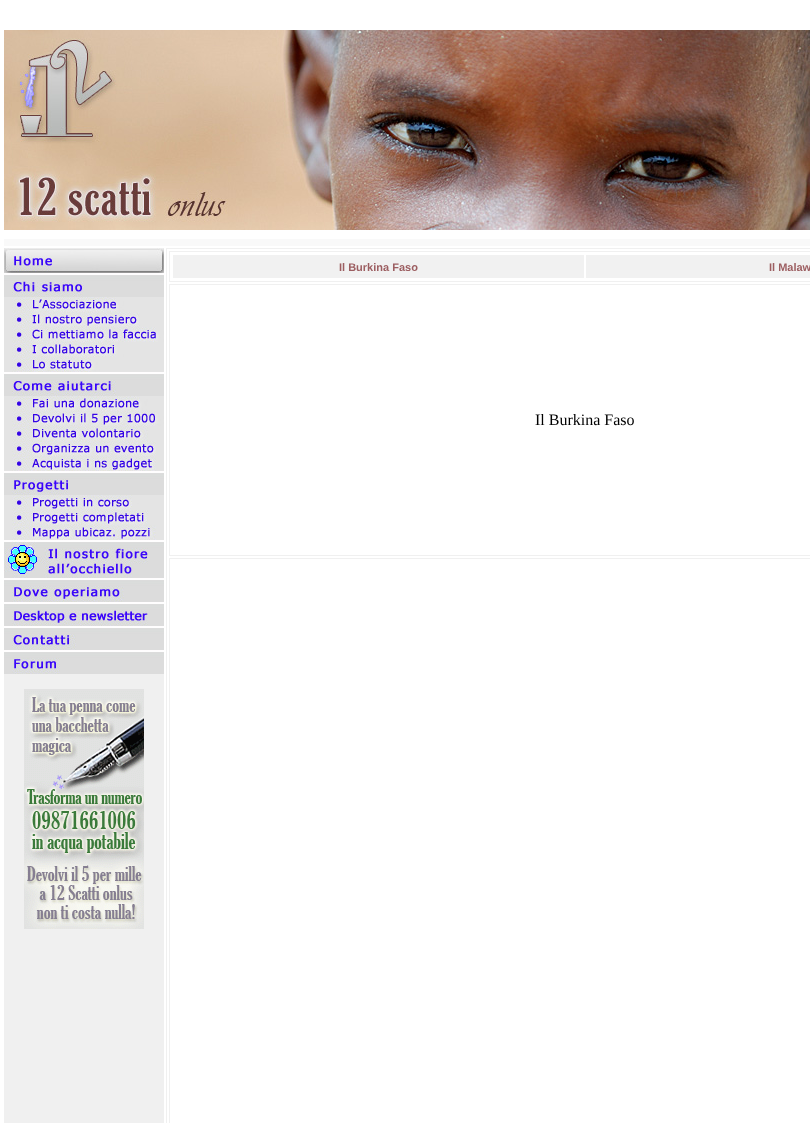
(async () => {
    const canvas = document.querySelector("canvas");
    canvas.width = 810;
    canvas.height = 1123;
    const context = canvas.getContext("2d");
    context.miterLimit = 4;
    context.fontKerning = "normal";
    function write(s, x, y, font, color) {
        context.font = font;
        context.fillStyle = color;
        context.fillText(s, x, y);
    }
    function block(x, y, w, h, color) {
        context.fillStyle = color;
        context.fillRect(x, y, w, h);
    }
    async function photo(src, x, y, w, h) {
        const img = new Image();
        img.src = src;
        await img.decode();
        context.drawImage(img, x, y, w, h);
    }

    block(0, 0, 810, 1123, "rgb(255, 255, 255)");
    await photo("media/1.png", 4, 30, 806, 200);
    block(4, 239, 806, 7, "rgb(249, 249, 249)");
    block(4, 674, 160, 449, "rgb(240, 240, 240)");
    await photo("media/2.png", 4, 248, 160, 25);
    await photo("media/3.png", 4, 273, 160, 24);
    await photo("media/4.png", 4, 297, 160, 15);
    await photo("media/5.png", 4, 312, 160, 15);
    await photo("media/6.png", 4, 327, 160, 15);
    await photo("media/7.png", 4, 342, 160, 15);
    await photo("media/8.png", 4, 357, 160, 15);
    await photo("media/9.png", 4, 372, 160, 24);
    await photo("media/10.png", 4, 396, 160, 15);
    await photo("media/11.png", 4, 411, 160, 15);
    await photo("media/12.png", 4, 426, 160, 15);
    await photo("media/13.png", 4, 441, 160, 15);
    await photo("media/14.png", 4, 456, 160, 15);
    await photo("media/15.png", 4, 471, 160, 24);
    await photo("media/16.png", 4, 495, 160, 15);
    await photo("media/17.png", 4, 510, 160, 15);
    await photo("media/18.png", 4, 525, 160, 15);
    await photo("media/19.png", 4, 540, 160, 38);
    await photo("media/20.png", 4, 578, 160, 24);
    await photo("media/21.png", 4, 602, 160, 24);
    await photo("media/22.png", 4, 626, 160, 24);
    await photo("media/23.png", 4, 650, 160, 24);
    await photo("media/24.png", 24, 689, 120, 240);
    context.strokeStyle = "rgb(240, 240, 240)";
    context.strokeRect(166.5, 248.5, 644, 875);
    context.strokeRect(169.5, 251.5, 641, 30);
    block(173, 255, 411, 23, "rgb(241, 241, 241)");
    write("Il Burkina Faso", 339, 271, "bold 11px Liberation Sans", "rgb(156, 94, 97)");
    block(586, 255, 224, 23, "rgb(241, 241, 241)");
    write("Il Malaw", 769, 271, "bold 11px Liberation Sans", "rgb(156, 94, 97)");
    context.strokeRect(169.5, 284.5, 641, 271);
    write("Il Burkina Faso", 535, 425, "16px Liberation Serif", "rgb(0, 0, 0)");
    context.strokeRect(169.5, 558.5, 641, 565);
})();
